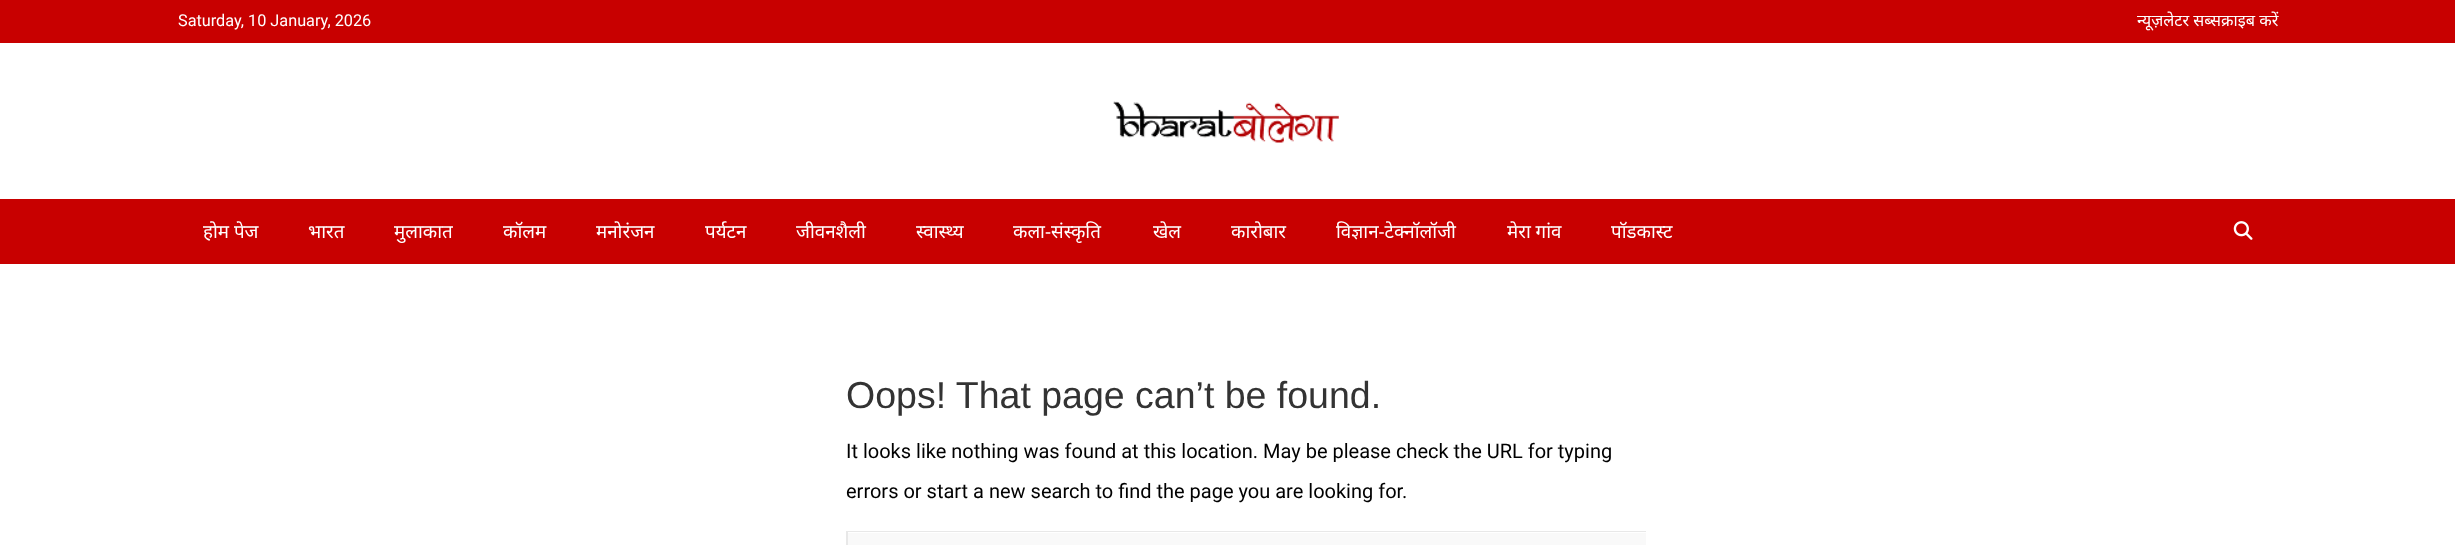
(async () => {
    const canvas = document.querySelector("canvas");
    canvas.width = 2455;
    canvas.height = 545;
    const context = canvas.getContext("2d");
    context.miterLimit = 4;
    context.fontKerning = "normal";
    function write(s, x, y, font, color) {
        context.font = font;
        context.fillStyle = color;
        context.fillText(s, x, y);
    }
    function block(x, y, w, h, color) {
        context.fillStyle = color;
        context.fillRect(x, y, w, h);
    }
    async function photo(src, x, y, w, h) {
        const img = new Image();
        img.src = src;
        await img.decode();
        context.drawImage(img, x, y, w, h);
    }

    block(0, 0, 2455, 545, "rgb(255, 255, 255)");
    block(0, 0, 2455, 43, "rgb(200, 0, 0)");
    write("Saturday, 10 January, 2026", 178, 26, "16.25px Roboto", "rgb(255, 255, 255)");
    write("न्यूज़लेटर सब्सक्राइब करें", 2137, 26, "16.25px Noto Sans", "rgb(255, 255, 255)");
    await photo("media/1.png", 1113, 101, 226, 42);
    block(0, 199, 2455, 65, "rgb(200, 0, 0)");
    write("होम पेज", 203, 238, "18.75px Noto Sans", "rgb(255, 255, 255)");
    write("भारत", 308, 238, "18.75px Noto Sans", "rgb(255, 255, 255)");
    write("मुलाकात", 394, 238, "18.75px Noto Sans", "rgb(255, 255, 255)");
    write("कॉलम", 503, 238, "18.75px Noto Sans", "rgb(255, 255, 255)");
    write("मनोरंजन", 596, 238, "18.75px Noto Sans", "rgb(255, 255, 255)");
    write("पर्यटन", 705, 238, "18.75px Noto Sans", "rgb(255, 255, 255)");
    write("जीवनशैली", 796, 238, "18.75px Noto Sans", "rgb(255, 255, 255)");
    write("स्वास्थ्य", 916, 238, "18.75px Noto Sans", "rgb(255, 255, 255)");
    write("कला-संस्कृति", 1013, 238, "18.75px Noto Sans", "rgb(255, 255, 255)");
    write("खेल", 1153, 238, "18.75px Noto Sans", "rgb(255, 255, 255)");
    write("कारोबार", 1231, 238, "18.75px Noto Sans", "rgb(255, 255, 255)");
    write("विज्ञान-टेक्नॉलॉजी", 1336, 238, "18.75px Noto Sans", "rgb(255, 255, 255)");
    write("मेरा गांव", 1507, 238, "18.75px Noto Sans", "rgb(255, 255, 255)");
    write("पॉडकास्ट", 1611, 238, "18.75px Noto Sans", "rgb(255, 255, 255)");
    await photo("media/2.png", 2233, 221, 20, 19);
    write("Oops! That page can’t be found.", 846, 408, "37.5px Liberation Sans", "rgb(51, 51, 51)");
    write("It looks like nothing was found at this location. May be please check the URL for typing", 846, 458, "20px Roboto", "rgb(0, 0, 0)");
    write("errors or start a new search to find the page you are looking for.", 846, 498, "20px Roboto", "rgb(0, 0, 0)");
    block(848, 533, 798, 12, "rgb(249, 249, 249)");
    context.fillStyle = "rgb(232, 232, 232)";
    context.beginPath();
    context.moveTo(846, 531);
    context.lineTo(1646, 531);
    context.lineTo(1646, 532);
    context.lineTo(848, 532);
    context.closePath();
    context.fill();
    context.fillStyle = "rgba(0, 0, 0, 0.09)";
    context.beginPath();
    context.moveTo(846, 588);
    context.lineTo(846, 531);
    context.lineTo(848, 532);
    context.lineTo(848, 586);
    context.closePath();
    context.fill();
})();
